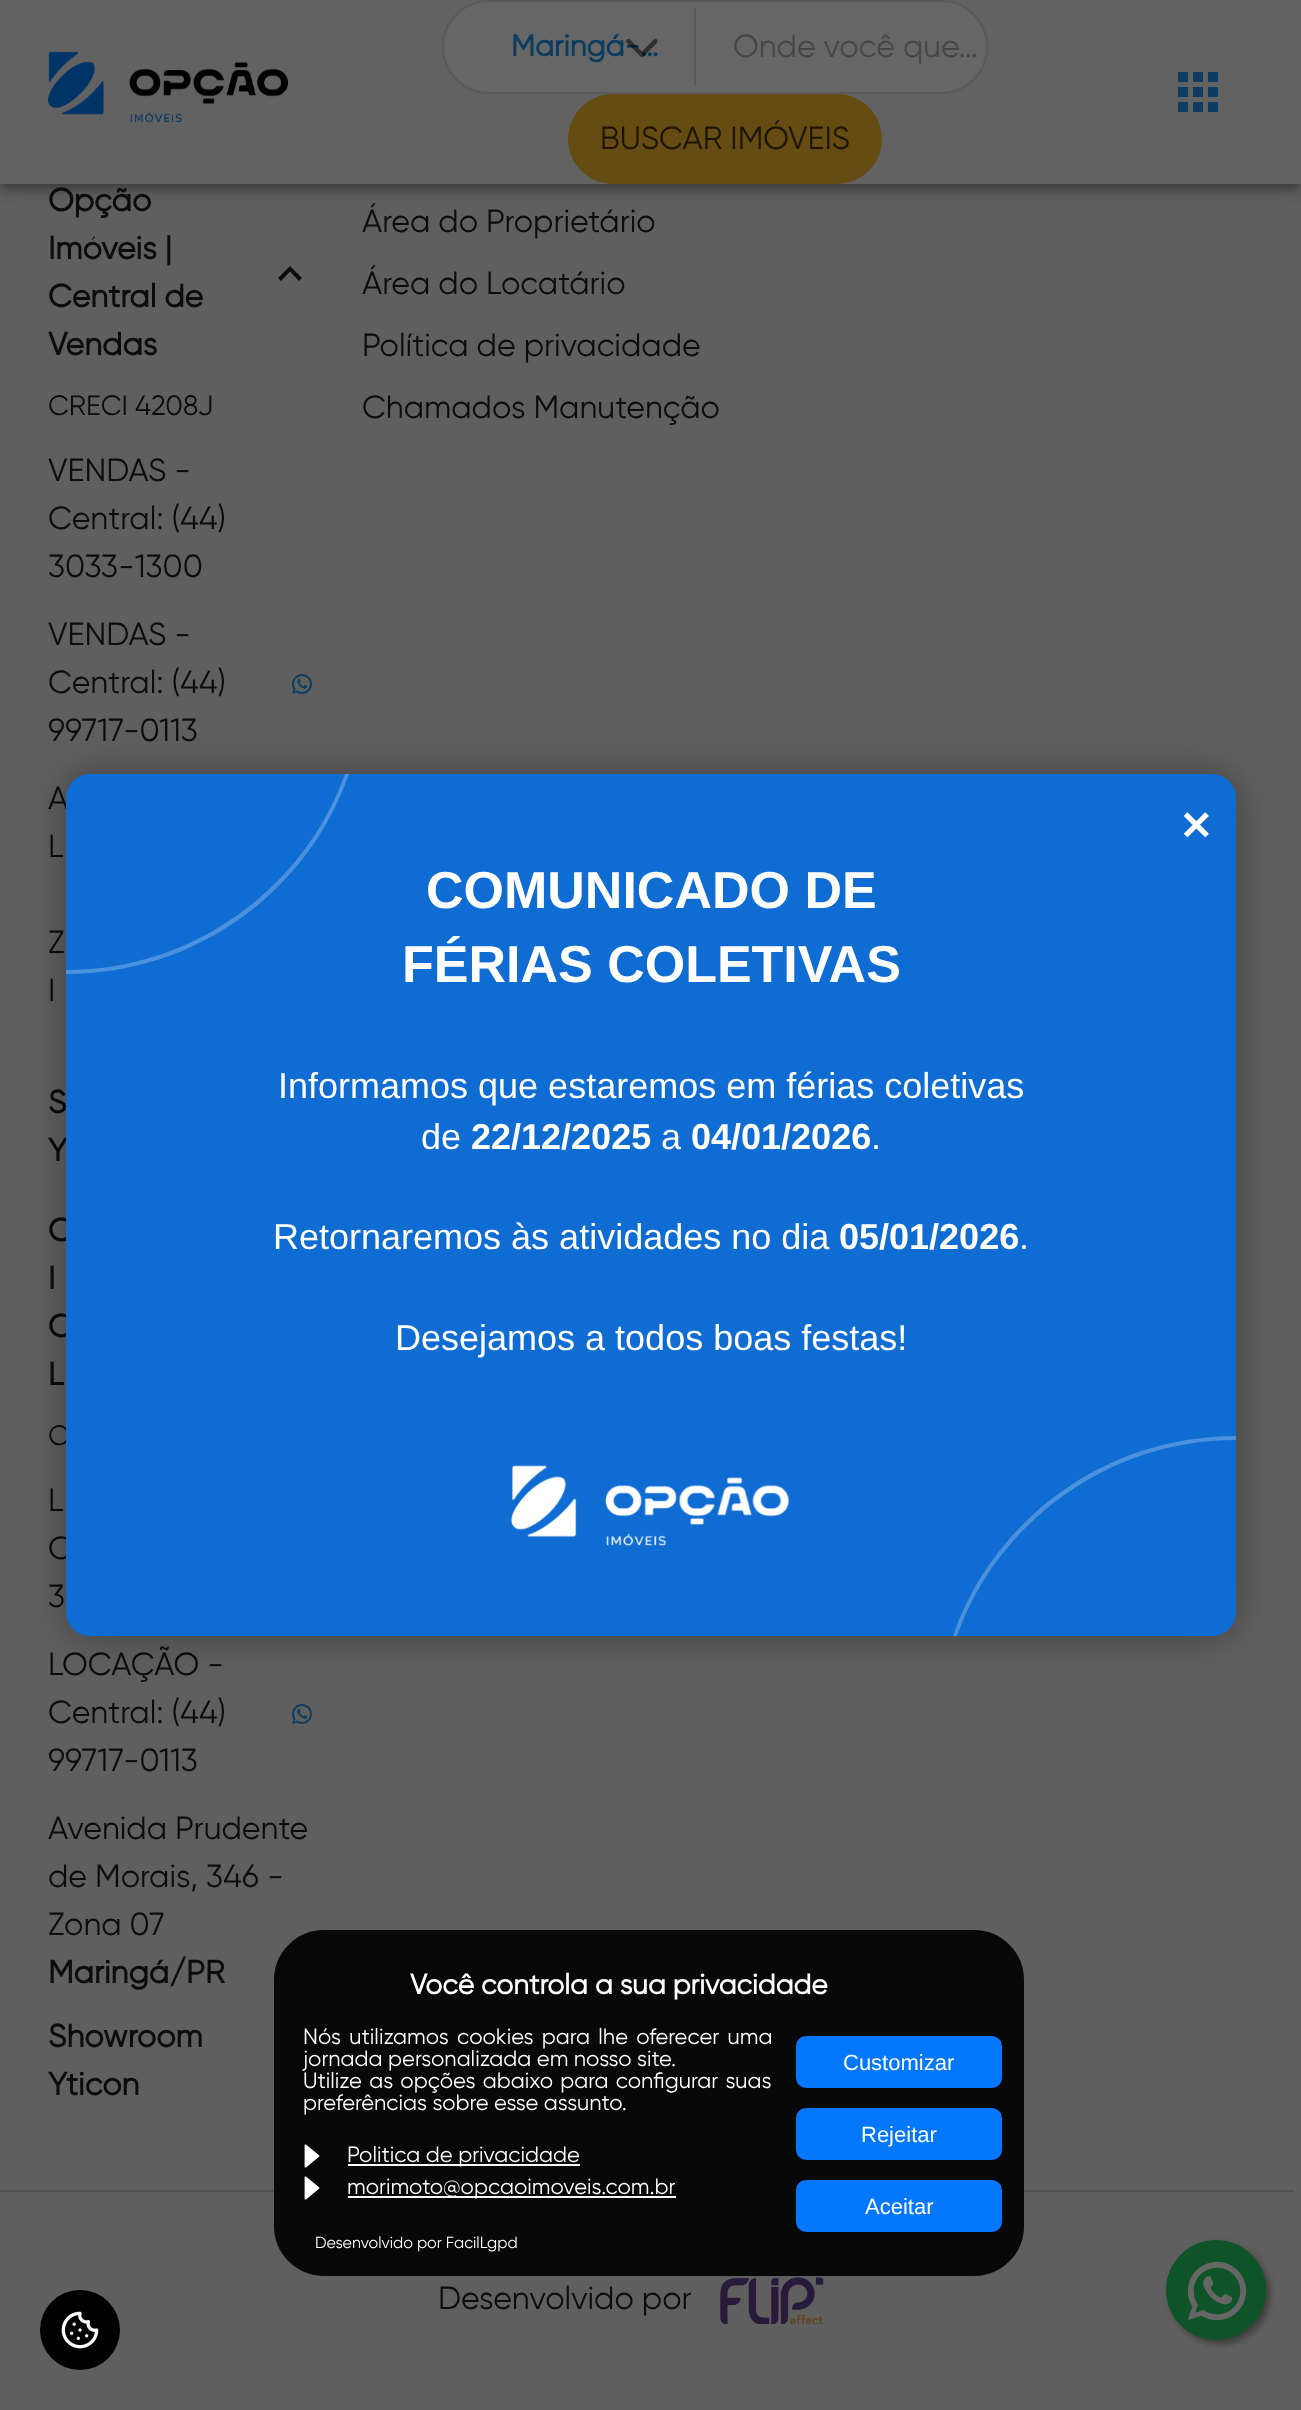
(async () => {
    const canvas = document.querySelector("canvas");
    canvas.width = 1301;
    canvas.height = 2410;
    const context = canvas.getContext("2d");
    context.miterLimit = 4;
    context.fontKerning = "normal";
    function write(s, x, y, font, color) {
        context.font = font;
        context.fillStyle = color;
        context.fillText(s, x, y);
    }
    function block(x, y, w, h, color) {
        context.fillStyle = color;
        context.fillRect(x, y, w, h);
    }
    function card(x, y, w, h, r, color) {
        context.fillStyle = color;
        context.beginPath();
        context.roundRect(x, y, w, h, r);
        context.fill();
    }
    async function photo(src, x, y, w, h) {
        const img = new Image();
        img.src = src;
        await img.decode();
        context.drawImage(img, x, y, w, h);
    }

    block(0, 0, 1301, 2410, "rgb(95, 95, 95)");
    context.fillStyle = "rgba(0, 0, 0, 0.12)";
    context.filter = "blur(10px)";
    context.beginPath();
    context.rect(0, 2, 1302, 184);
    context.fill();
    context.filter = "none";
    context.fillStyle = "rgba(0, 0, 0, 0.14)";
    context.filter = "blur(5px)";
    context.beginPath();
    context.rect(0, 8, 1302, 184);
    context.fill();
    context.filter = "none";
    context.fillStyle = "rgba(0, 0, 0, 0.2)";
    context.filter = "blur(4px)";
    context.beginPath();
    context.rect(2, 6, 1298, 180);
    context.fill();
    context.filter = "none";
    block(0, 0, 1301, 184, "rgb(98, 98, 98)");
    await photo("media/1.png", 48, 51, 240, 72);
    context.fillStyle = "rgb(102, 102, 102)";
    context.beginPath();
    context.roundRect(443, 1, 544, 92, 46);
    context.fill();
    context.strokeStyle = "rgb(90, 90, 90)";
    context.lineWidth = 2;
    context.stroke();
    block(694, 8, 2, 78, "rgb(90, 90, 90)");
    write("Maringá-…", 511, 56, "bold 30px Gilroy", "rgb(13, 60, 97)");
    await photo("media/2.png", 626, 39, 32, 18);
    write("Onde você que…", 733, 57, "32px Gilroy", "rgb(70, 70, 70)");
    card(568, 94, 314, 90, 45, "rgb(101, 76, 18)");
    write("BUSCAR IMÓVEIS", 600, 149, "32px Gilroy", "rgb(29, 21, 3)");
    await photo("media/3.png", 1178, 72, 40, 40);
    write("Opção", 48, 211, "bold 32px Gilroy", "rgb(12, 12, 12)");
    write("Imóveis |", 48, 259, "bold 32px Gilroy", "rgb(12, 12, 12)");
    write("Central de", 48, 307, "bold 32px Gilroy", "rgb(12, 12, 12)");
    write("Vendas", 48, 355, "bold 32px Gilroy", "rgb(12, 12, 12)");
    context.beginPath();
    context.moveTo(290, 266);
    context.lineTo(278, 278);
    context.lineTo(281, 281);
    context.lineTo(290, 271.5);
    context.lineTo(299, 281);
    context.lineTo(302, 278);
    context.closePath();
    context.fill();
    write("CRECI 4208J", 48, 415, "28px Gilroy", "rgb(12, 12, 12)");
    write("VENDAS -", 48, 481, "32px Gilroy", "rgb(12, 12, 12)");
    write("Central: (44)", 48, 529, "32px Gilroy", "rgb(12, 12, 12)");
    write("3033-1300", 48, 577, "32px Gilroy", "rgb(12, 12, 12)");
    write("VENDAS -", 48, 645, "32px Gilroy", "rgb(12, 12, 12)");
    write("Central: (44)", 48, 693, "32px Gilroy", "rgb(12, 12, 12)");
    write("99717-0113", 48, 741, "32px Gilroy", "rgb(12, 12, 12)");
    await photo("media/4.png", 292, 674, 20, 20);
    write("A", 48, 809, "32px Gilroy", "rgb(12, 12, 12)");
    write("L", 48, 857, "32px Gilroy", "rgb(12, 12, 12)");
    write("Z", 48, 953, "32px Gilroy", "rgb(12, 12, 12)");
    write("I", 48, 1001, "32px Gilroy", "rgb(12, 12, 12)");
    write("S", 48, 1113, "bold 32px Gilroy", "rgb(12, 12, 12)");
    write("Y", 48, 1161, "bold 32px Gilroy", "rgb(12, 12, 12)");
    write("O", 48, 1241, "bold 32px Gilroy", "rgb(12, 12, 12)");
    write("I", 48, 1289, "bold 32px Gilroy", "rgb(12, 12, 12)");
    write("C", 48, 1337, "bold 32px Gilroy", "rgb(12, 12, 12)");
    write("L", 48, 1385, "bold 32px Gilroy", "rgb(12, 12, 12)");
    write("C", 48, 1445, "28px Gilroy", "rgb(12, 12, 12)");
    write("L", 48, 1511, "32px Gilroy", "rgb(12, 12, 12)");
    write("C", 48, 1559, "32px Gilroy", "rgb(12, 12, 12)");
    write("3", 48, 1607, "32px Gilroy", "rgb(12, 12, 12)");
    write("LOCAÇÃO -", 48, 1675, "32px Gilroy", "rgb(12, 12, 12)");
    write("Central: (44)", 48, 1723, "32px Gilroy", "rgb(12, 12, 12)");
    write("99717-0113", 48, 1771, "32px Gilroy", "rgb(12, 12, 12)");
    await photo("media/4.png", 292, 1704, 20, 20);
    write("Avenida Prudente", 48, 1839, "32px Gilroy", "rgb(12, 12, 12)");
    write("de Morais, 346 -", 48, 1887, "32px Gilroy", "rgb(12, 12, 12)");
    write("Zona 07", 48, 1935, "32px Gilroy", "rgb(12, 12, 12)");
    write("Maringá/PR", 48, 1983, "bold 32px Gilroy", "rgb(12, 12, 12)");
    write("Showroom", 48, 2047, "bold 32px Gilroy", "rgb(12, 12, 12)");
    write("Yticon", 48, 2095, "bold 32px Gilroy", "rgb(12, 12, 12)");
    write("Área do Proprietário", 362, 232, "32px Gilroy", "rgb(12, 12, 12)");
    write("Área do Locatário", 362, 294, "32px Gilroy", "rgb(12, 12, 12)");
    write("Política de privacidade", 362, 356, "32px Gilroy", "rgb(12, 12, 12)");
    write("Chamados Manutenção", 362, 418, "32px Gilroy", "rgb(12, 12, 12)");
    block(0, 2190, 1294, 2, "rgb(82, 82, 82)");
    write("Desenvolvido por", 438, 2309, "32px Gilroy", "rgb(12, 12, 12)");
    await photo("media/5.png", 720, 2277, 104, 47);
    context.fillStyle = "rgb(61, 61, 61)";
    context.filter = "blur(3px)";
    context.beginPath();
    context.roundRect(1170, 2244, 100, 100, 50);
    context.fill();
    context.filter = "none";
    context.fillStyle = "rgb(15, 84, 41)";
    context.beginPath();
    context.arc(1216, 2290, 50, 0, Math.PI * 2);
    context.fill();
    await photo("media/6.png", 1187, 2261, 60, 60);
    context.fillStyle = "rgba(0, 0, 0, 0.3)";
    context.filter = "blur(20px)";
    context.beginPath();
    context.roundRect(66, 774, 1170, 862, 24);
    context.fill();
    context.filter = "none";
    card(66, 774, 1170, 862, 24, "rgb(15, 108, 211)");
    context.fillStyle = "rgb(75, 145, 222)";
    context.beginPath();
    context.moveTo(349, 774);
    context.bezierCurveTo(308, 891, 197, 974, 66, 974);
    context.lineTo(66, 970);
    context.bezierCurveTo(194, 970, 304, 888, 345, 774);
    context.closePath();
    context.fill();
    write("✕", 1179, 840, "bold 40px DejaVu Sans", "rgb(255, 255, 255)");
    write("COMUNICADO DE", 426, 908, "bold 52px Liberation Sans", "rgb(255, 255, 255)");
    write("FÉRIAS COLETIVAS", 402, 982, "bold 52px Liberation Sans", "rgb(255, 255, 255)");
    write("Informamos que estaremos em férias coletivas", 278, 1098, "36px Liberation Sans", "rgb(255, 255, 255)");
    write("de", 421, 1149, "36px Liberation Sans", "rgb(255, 255, 255)");
    write("22/12/2025", 471, 1149, "bold 36px Liberation Sans", "rgb(255, 255, 255)");
    write("a", 661, 1149, "36px Liberation Sans", "rgb(255, 255, 255)");
    write("04/01/2026", 691, 1149, "bold 36px Liberation Sans", "rgb(255, 255, 255)");
    write(".", 871, 1149, "36px Liberation Sans", "rgb(255, 255, 255)");
    write("Retornaremos às atividades no dia", 273, 1249, "36px Liberation Sans", "rgb(255, 255, 255)");
    write("05/01/2026", 839, 1249, "bold 36px Liberation Sans", "rgb(255, 255, 255)");
    write(".", 1019, 1249, "36px Liberation Sans", "rgb(255, 255, 255)");
    write("Desejamos a todos boas festas!", 395, 1350, "36px Liberation Sans", "rgb(255, 255, 255)");
    await photo("media/7.png", 510, 1465, 280, 81);
    context.fillStyle = "rgb(75, 145, 222)";
    context.beginPath();
    context.moveTo(1236, 1440);
    context.lineTo(1236, 1436);
    context.bezierCurveTo(1105, 1436, 994, 1519, 953, 1636);
    context.lineTo(957, 1636);
    context.bezierCurveTo(998, 1522, 1108, 1440, 1236, 1440);
    context.closePath();
    context.fill();
    context.fillStyle = "rgb(8, 8, 8)";
    context.beginPath();
    context.roundRect(275, 1931, 748, 344, 49);
    context.fill();
    context.strokeStyle = "rgb(8, 8, 8)";
    context.stroke();
    write("Você controla a sua privacidade", 410, 1994, "bold 28px Gilroy", "rgb(255, 255, 255)");
    context.wordSpacing = "2.75px";
    write("Nós utilizamos cookies para lhe oferecer uma", 303, 2044, "22px Gilroy", "rgb(255, 255, 255)");
    context.wordSpacing = "0px";
    write("jornada personalizada em nosso site.", 303, 2066, "22px Gilroy", "rgb(255, 255, 255)");
    context.wordSpacing = "1.75px";
    write("Utilize as opções abaixo para configurar suas", 303, 2088, "22px Gilroy", "rgb(255, 255, 255)");
    context.wordSpacing = "0px";
    write("preferências sobre esse assunto.", 303, 2110, "22px Gilroy", "rgb(255, 255, 255)");
    await photo("media/8.png", 304, 2144, 16, 24);
    block(348, 2164, 232, 2, "rgb(255, 255, 255)");
    write("Politica de privacidade", 347, 2162, "22px Gilroy", "rgb(255, 255, 255)");
    await photo("media/8.png", 304, 2176, 16, 24);
    block(348, 2196, 328, 2, "rgb(255, 255, 255)");
    write("morimoto@opcaoimoveis.com.br", 347, 2194, "22px Gilroy", "rgb(255, 255, 255)");
    card(796, 2036, 206, 52, 10, "rgb(4, 119, 255)");
    write("Customizar", 843, 2070, "22px Liberation Sans", "rgb(255, 255, 255)");
    card(796, 2108, 206, 52, 10, "rgb(4, 119, 255)");
    write("Rejeitar", 861, 2142, "22px Liberation Sans", "rgb(255, 255, 255)");
    card(796, 2180, 206, 52, 10, "rgb(4, 119, 255)");
    write("Aceitar", 865, 2214, "22px Liberation Sans", "rgb(255, 255, 255)");
    write("Desenvolvido por FacilLgpd", 315, 2248, "16px Gilroy", "rgb(255, 255, 255)");
    context.fillStyle = "rgb(0, 0, 0)";
    context.beginPath();
    context.arc(80, 2330, 40, 0, Math.PI * 2);
    context.fill();
    await photo("media/9.png", 61, 2311, 38, 38);
})();
